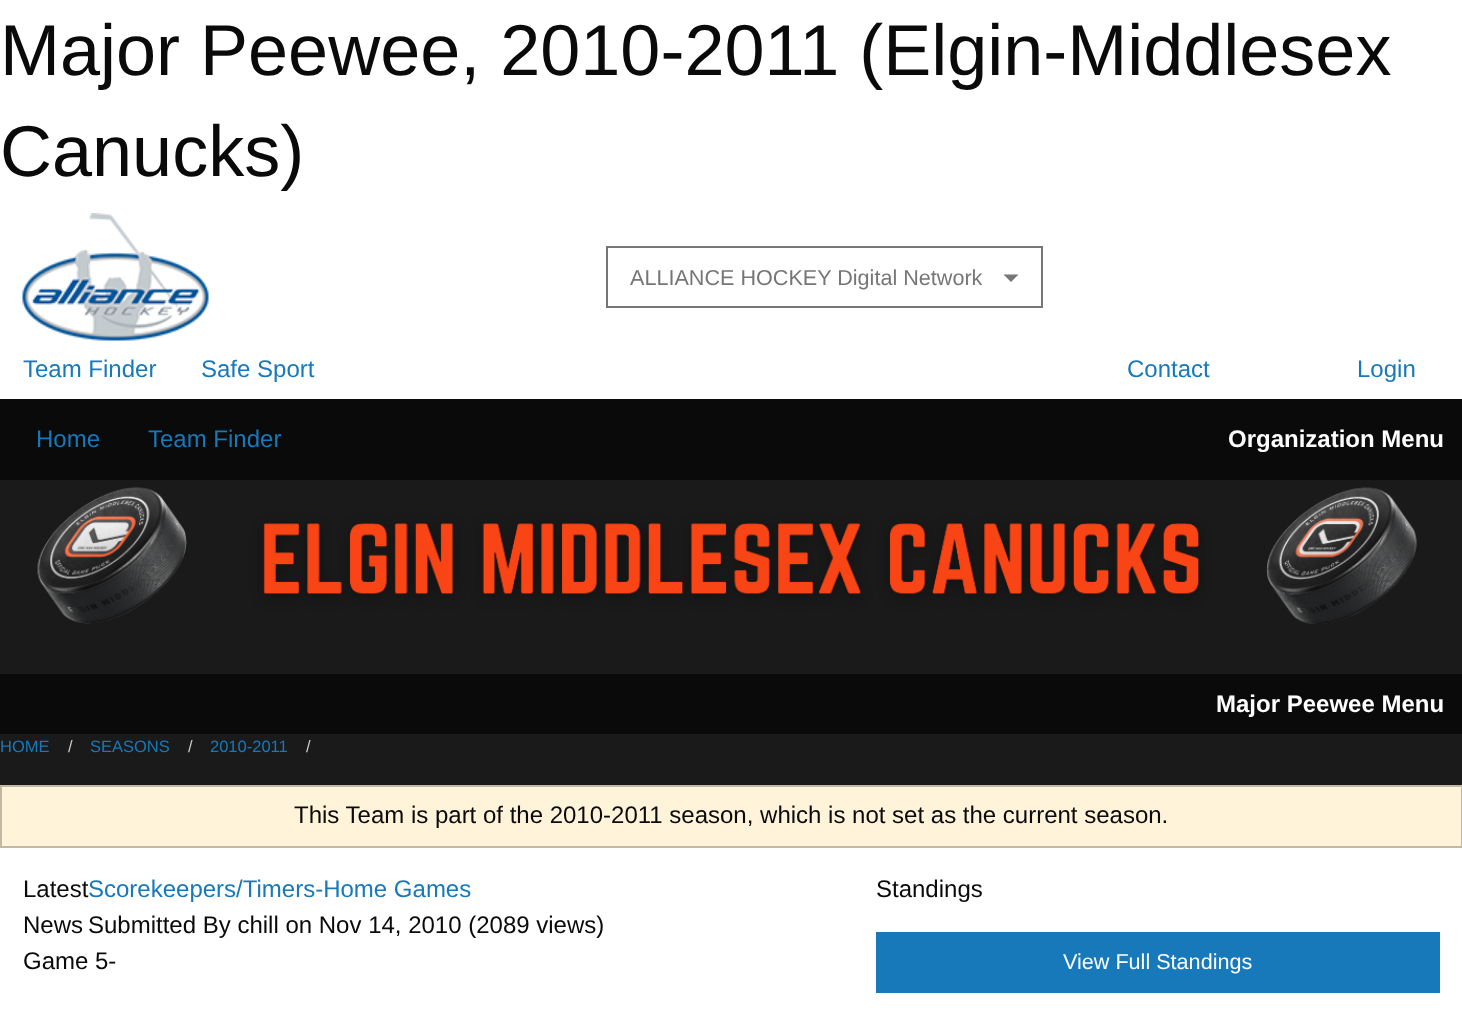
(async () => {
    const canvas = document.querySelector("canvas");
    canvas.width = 1462;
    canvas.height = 1035;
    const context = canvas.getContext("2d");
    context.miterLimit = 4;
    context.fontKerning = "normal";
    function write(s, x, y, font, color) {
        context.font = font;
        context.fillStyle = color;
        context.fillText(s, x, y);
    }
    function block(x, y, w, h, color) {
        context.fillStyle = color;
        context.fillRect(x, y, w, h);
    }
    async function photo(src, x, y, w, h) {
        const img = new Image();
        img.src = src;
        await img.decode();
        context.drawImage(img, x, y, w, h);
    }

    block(0, 0, 1462, 1035, "rgb(255, 255, 255)");
    write("Major Peewee, 2010-2011 (Elgin-Middlesex", 0, 75, "72px Liberation Sans", "rgb(10, 10, 10)");
    write("Canucks)", 0, 176, "72px Liberation Sans", "rgb(10, 10, 10)");
    await photo("media/1.png", 22, 213, 187, 128);
    context.strokeStyle = "rgb(118, 118, 118)";
    context.lineWidth = 2;
    context.strokeRect(607, 247, 435, 60);
    write("ALLIANCE HOCKEY Digital Network", 630, 285, "21.6px Liberation Sans", "rgb(118, 118, 118)");
    context.beginPath();
    context.moveTo(1003.5, 274.5);
    context.lineTo(1018.5, 274.5);
    context.lineTo(1011, 282);
    context.closePath();
    context.fill();
    write("Team Finder", 23, 377, "24px Liberation Sans", "rgb(23, 121, 186)");
    write("Safe Sport", 201, 377, "24px Liberation Sans", "rgb(23, 121, 186)");
    write("Contact", 1127, 377, "24px Liberation Sans", "rgb(23, 121, 186)");
    write("Login", 1357, 377, "24px Liberation Sans", "rgb(23, 121, 186)");
    block(0, 480, 1462, 194, "rgb(26, 26, 26)");
    block(0, 399, 1462, 81, "rgb(10, 10, 10)");
    write("Home", 36, 447, "24px Liberation Sans", "rgb(23, 121, 186)");
    write("Team Finder", 148, 447, "24px Liberation Sans", "rgb(23, 121, 186)");
    write("Organization Menu", 1228, 447, "bold 24px Liberation Sans", "rgb(254, 254, 254)");
    await photo("media/2.png", 37, 487, 1380, 137);
    block(0, 674, 1462, 60, "rgb(10, 10, 10)");
    write("Major Peewee Menu", 1216, 712, "bold 24px Liberation Sans", "rgb(254, 254, 254)");
    block(0, 734, 1462, 51, "rgb(26, 26, 26)");
    write("HOME", 0, 752, "16.5px Liberation Sans", "rgb(23, 121, 186)");
    write("/", 68, 752, "16.5px Liberation Sans", "rgb(202, 202, 202)");
    write("SEASONS", 90, 752, "16.5px Liberation Sans", "rgb(23, 121, 186)");
    write("/", 188, 752, "16.5px Liberation Sans", "rgb(202, 202, 202)");
    write("2010-2011", 210, 752, "16.5px Liberation Sans", "rgb(23, 121, 186)");
    write("/", 306, 752, "16.5px Liberation Sans", "rgb(202, 202, 202)");
    context.fillStyle = "rgb(255, 243, 217)";
    context.beginPath();
    context.rect(1, 786, 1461, 61);
    context.fill();
    context.strokeStyle = "rgb(194, 185, 165)";
    context.stroke();
    write("This Team is part of the 2010-2011 season, which is not set as the current season.", 294, 823, "24px Liberation Sans", "rgb(10, 10, 10)");
    write("Latest", 23, 897, "24px Liberation Sans", "rgb(10, 10, 10)");
    write("News", 23, 933, "24px Liberation Sans", "rgb(10, 10, 10)");
    write("Scorekeepers/Timers-Home Games", 88, 897, "24px Liberation Sans", "rgb(23, 121, 186)");
    write("Submitted By chill on Nov 14, 2010 (2089 views)", 88, 933, "24px Liberation Sans", "rgb(10, 10, 10)");
    write("Game 5-", 23, 969, "24px Liberation Sans", "rgb(10, 10, 10)");
    write("Standings", 876, 897, "24px Liberation Sans", "rgb(10, 10, 10)");
    block(876, 932, 564, 61, "rgb(23, 121, 186)");
    write("View Full Standings", 1063, 969, "21.6px Liberation Sans", "rgb(254, 254, 254)");
})();
